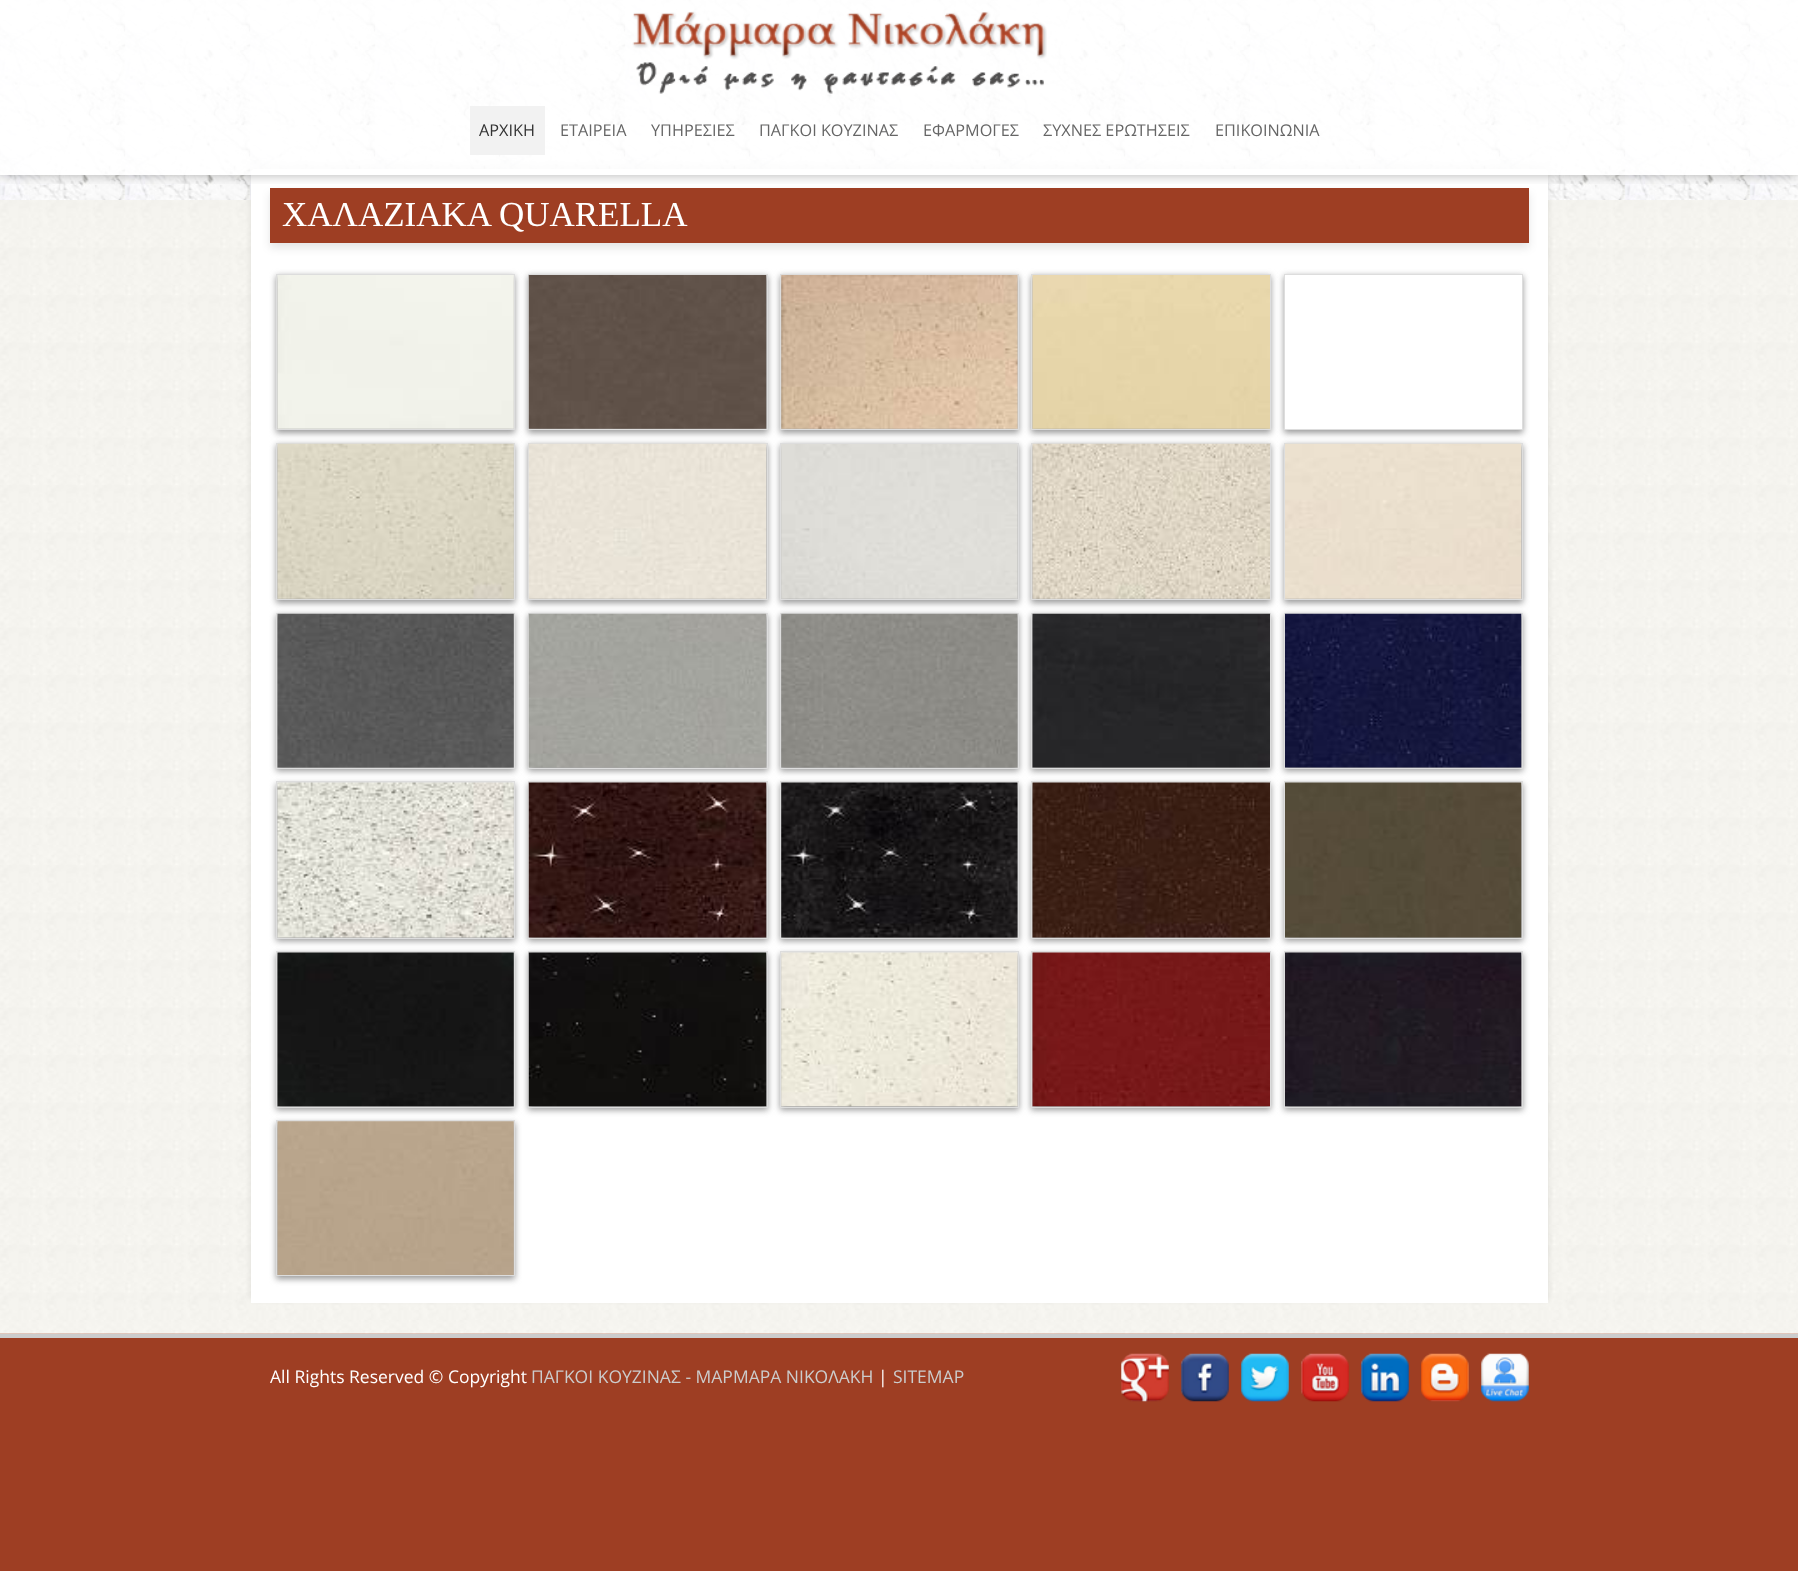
(async () => {
    const canvas = document.querySelector("canvas");
    canvas.width = 1798;
    canvas.height = 1571;
    const context = canvas.getContext("2d");
    context.miterLimit = 4;
    context.fontKerning = "normal";
    function write(s, x, y, font, color) {
        context.font = font;
        context.fillStyle = color;
        context.fillText(s, x, y);
    }
    function block(x, y, w, h, color) {
        context.fillStyle = color;
        context.fillRect(x, y, w, h);
    }
    async function photo(src, x, y, w, h) {
        const img = new Image();
        img.src = src;
        await img.decode();
        context.drawImage(img, x, y, w, h);
    }

    block(0, 0, 1798, 1571, "rgb(158, 62, 35)");
    await photo("media/1.png", 0, 0, 1798, 200);
    await photo("media/3.png", 0, 200, 1798, 1134);
    context.fillStyle = "rgba(0, 0, 0, 0.1)";
    context.filter = "blur(3px)";
    context.beginPath();
    context.roundRect(251, 165, 1297, 1134, 4);
    context.fill();
    context.filter = "none";
    context.fillStyle = "rgb(255, 255, 255)";
    context.beginPath();
    context.roundRect(251, 169, 1297, 1134, [4, 4, 0, 0]);
    context.fill();
    context.fillStyle = "rgba(0, 0, 0, 0.1)";
    context.filter = "blur(4px)";
    context.beginPath();
    context.rect(270, 193, 1259, 55);
    context.fill();
    context.filter = "none";
    block(270, 188, 1259, 55, "rgb(158, 62, 35)");
    context.save();
    context.beginPath();
    context.rect(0, 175, 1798, 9);
    context.clip();
    context.fillStyle = "rgba(0, 0, 0, 0.3)";
    context.filter = "blur(6px)";
    context.beginPath();
    context.rect(0, 0, 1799, 175);
    context.fill();
    context.filter = "none";
    context.restore();
    block(0, 0, 1798, 175, "rgba(255, 255, 255, 0.9)");
    await photo("media/2.png", 632, 11, 415, 83);
    block(470, 106, 75, 49, "rgb(242, 242, 242)");
    write("ΑΡΧΙΚΗ", 479, 136, "16.25px Open Sans", "rgb(51, 51, 51)");
    write("ΕΤΑΙΡΕΙΑ", 560, 136, "16.25px Open Sans", "rgb(102, 102, 102)");
    write("ΥΠΗΡΕΣΙΕΣ", 651, 136, "16.25px Open Sans", "rgb(102, 102, 102)");
    write("ΠΑΓΚΟΙ ΚΟΥΖΙΝΑΣ", 759, 136, "16.25px Open Sans", "rgb(102, 102, 102)");
    write("ΕΦΑΡΜΟΓΕΣ", 923, 136, "16.25px Open Sans", "rgb(102, 102, 102)");
    write("ΣΥΧΝΕΣ ΕΡΩΤΗΣΕΙΣ", 1043, 136, "16.25px Open Sans", "rgb(102, 102, 102)");
    write("ΕΠΙΚΟΙΝΩΝΙΑ", 1215, 136, "16.25px Open Sans", "rgb(102, 102, 102)");
    write("ΧΑΛΑΖΙΑΚΑ QUARELLA", 282, 226, "35px Liberation Serif", "rgb(255, 255, 255)");
    context.fillStyle = "rgb(153, 153, 153)";
    context.filter = "blur(3px)";
    context.beginPath();
    context.rect(276, 276, 239, 157);
    context.fill();
    context.filter = "none";
    context.strokeStyle = "rgb(221, 221, 221)";
    context.strokeRect(276.5, 274.5, 238, 155);
    await photo("media/4.png", 277, 275, 237, 154);
    context.filter = "blur(3px)";
    context.beginPath();
    context.rect(528, 276, 240, 157);
    context.fill();
    context.filter = "none";
    context.strokeRect(528.5, 274.5, 239, 155);
    await photo("media/5.png", 528, 275, 239, 154);
    context.filter = "blur(3px)";
    context.beginPath();
    context.rect(780, 276, 239, 157);
    context.fill();
    context.filter = "none";
    context.strokeRect(780.5, 274.5, 238, 155);
    await photo("media/6.png", 781, 275, 237, 154);
    context.filter = "blur(3px)";
    context.beginPath();
    context.rect(1031, 276, 240, 157);
    context.fill();
    context.filter = "none";
    context.strokeRect(1031.5, 274.5, 239, 155);
    await photo("media/7.png", 1032, 275, 238, 154);
    context.save();
    context.beginPath();
    context.moveTo(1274, 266);
    context.lineTo(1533, 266);
    context.lineTo(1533, 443);
    context.lineTo(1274, 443);
    context.closePath();
    context.moveTo(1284, 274);
    context.lineTo(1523, 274);
    context.lineTo(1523, 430);
    context.lineTo(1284, 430);
    context.closePath();
    context.clip("evenodd");
    context.filter = "blur(3px)";
    context.beginPath();
    context.rect(1284, 276, 239, 157);
    context.fill();
    context.filter = "none";
    context.restore();
    context.strokeRect(1284.5, 274.5, 238, 155);
    context.filter = "blur(3px)";
    context.beginPath();
    context.rect(276, 445, 239, 158);
    context.fill();
    context.filter = "none";
    context.strokeRect(276.5, 443.5, 238, 156);
    await photo("media/8.png", 277, 443, 237, 156);
    context.filter = "blur(3px)";
    context.beginPath();
    context.rect(528, 445, 240, 158);
    context.fill();
    context.filter = "none";
    context.strokeRect(528.5, 443.5, 239, 156);
    await photo("media/9.png", 528, 443, 239, 156);
    context.filter = "blur(3px)";
    context.beginPath();
    context.rect(780, 445, 239, 158);
    context.fill();
    context.filter = "none";
    context.strokeRect(780.5, 443.5, 238, 156);
    await photo("media/10.png", 781, 444, 237, 155);
    context.filter = "blur(3px)";
    context.beginPath();
    context.rect(1031, 445, 240, 158);
    context.fill();
    context.filter = "none";
    context.strokeRect(1031.5, 443.5, 239, 156);
    await photo("media/11.png", 1032, 443, 238, 156);
    context.filter = "blur(3px)";
    context.beginPath();
    context.rect(1284, 445, 239, 158);
    context.fill();
    context.filter = "none";
    context.strokeRect(1284.5, 443.5, 238, 156);
    await photo("media/12.png", 1285, 443, 237, 156);
    context.filter = "blur(3px)";
    context.beginPath();
    context.rect(276, 615, 239, 156);
    context.fill();
    context.filter = "none";
    context.strokeRect(276.5, 613.5, 238, 155);
    await photo("media/13.png", 277, 613, 237, 155);
    context.filter = "blur(3px)";
    context.beginPath();
    context.rect(528, 615, 240, 156);
    context.fill();
    context.filter = "none";
    context.strokeRect(528.5, 613.5, 239, 155);
    await photo("media/14.png", 528, 613, 239, 155);
    context.filter = "blur(3px)";
    context.beginPath();
    context.rect(780, 615, 239, 156);
    context.fill();
    context.filter = "none";
    context.strokeRect(780.5, 613.5, 238, 155);
    await photo("media/15.png", 781, 613, 237, 155);
    context.filter = "blur(3px)";
    context.beginPath();
    context.rect(1031, 615, 240, 156);
    context.fill();
    context.filter = "none";
    context.strokeRect(1031.5, 613.5, 239, 155);
    await photo("media/16.png", 1032, 613, 238, 155);
    context.filter = "blur(3px)";
    context.beginPath();
    context.rect(1284, 615, 239, 156);
    context.fill();
    context.filter = "none";
    context.strokeRect(1284.5, 613.5, 238, 155);
    await photo("media/17.png", 1285, 613, 237, 155);
    context.filter = "blur(3px)";
    context.beginPath();
    context.rect(276, 784, 239, 157);
    context.fill();
    context.filter = "none";
    context.strokeRect(276.5, 781.5, 238, 157);
    await photo("media/18.png", 277, 782, 237, 156);
    context.filter = "blur(3px)";
    context.beginPath();
    context.rect(528, 784, 240, 157);
    context.fill();
    context.filter = "none";
    context.strokeRect(528.5, 781.5, 239, 157);
    await photo("media/19.png", 528, 782, 239, 156);
    context.filter = "blur(3px)";
    context.beginPath();
    context.rect(780, 784, 239, 157);
    context.fill();
    context.filter = "none";
    context.strokeRect(780.5, 781.5, 238, 157);
    await photo("media/20.png", 781, 782, 237, 156);
    context.filter = "blur(3px)";
    context.beginPath();
    context.rect(1031, 784, 240, 157);
    context.fill();
    context.filter = "none";
    context.strokeRect(1031.5, 781.5, 239, 157);
    await photo("media/21.png", 1032, 782, 238, 156);
    context.filter = "blur(3px)";
    context.beginPath();
    context.rect(1284, 784, 239, 157);
    context.fill();
    context.filter = "none";
    context.strokeRect(1284.5, 781.5, 238, 157);
    await photo("media/22.png", 1285, 782, 237, 156);
    context.filter = "blur(3px)";
    context.beginPath();
    context.rect(276, 954, 239, 156);
    context.fill();
    context.filter = "none";
    context.strokeRect(276.5, 951.5, 238, 156);
    await photo("media/23.png", 277, 952, 237, 155);
    context.filter = "blur(3px)";
    context.beginPath();
    context.rect(528, 954, 240, 156);
    context.fill();
    context.filter = "none";
    context.strokeRect(528.5, 951.5, 239, 156);
    await photo("media/24.png", 528, 952, 239, 155);
    context.filter = "blur(3px)";
    context.beginPath();
    context.rect(780, 954, 239, 156);
    context.fill();
    context.filter = "none";
    context.strokeRect(780.5, 951.5, 238, 156);
    await photo("media/25.png", 781, 952, 237, 155);
    context.filter = "blur(3px)";
    context.beginPath();
    context.rect(1031, 954, 240, 156);
    context.fill();
    context.filter = "none";
    context.strokeRect(1031.5, 951.5, 239, 156);
    await photo("media/26.png", 1032, 952, 238, 155);
    context.filter = "blur(3px)";
    context.beginPath();
    context.rect(1284, 954, 239, 156);
    context.fill();
    context.filter = "none";
    context.strokeRect(1284.5, 951.5, 238, 156);
    await photo("media/27.png", 1285, 952, 237, 155);
    context.filter = "blur(3px)";
    context.beginPath();
    context.rect(276, 1123, 239, 156);
    context.fill();
    context.filter = "none";
    context.strokeRect(276.5, 1120.5, 238, 155);
    await photo("media/28.png", 277, 1121, 237, 154);
    block(0, 1334, 1798, 4, "rgb(204, 204, 204)");
    write("All Rights Reserved © Copyright", 270, 1383, "17.5px Open Sans", "rgb(255, 255, 255)");
    write("ΠΑΓΚΟΙ ΚΟΥΖΙΝΑΣ - ΜΑΡΜΑΡΑ ΝΙΚΟΛΑΚΗ", 531, 1383, "17.5px Open Sans", "rgb(204, 204, 204)");
    write("|", 878, 1383, "17.5px Open Sans", "rgb(255, 255, 255)");
    write("SITEMAP", 893, 1383, "17.5px Open Sans", "rgb(204, 204, 204)");
    await photo("media/29.png", 1121, 1353, 48, 49);
    await photo("media/30.png", 1181, 1353, 48, 49);
    await photo("media/31.png", 1241, 1353, 48, 49);
    await photo("media/32.png", 1301, 1353, 48, 49);
    await photo("media/33.png", 1361, 1353, 48, 49);
    await photo("media/34.png", 1421, 1353, 48, 49);
    await photo("media/35.png", 1481, 1353, 48, 49);
})();
